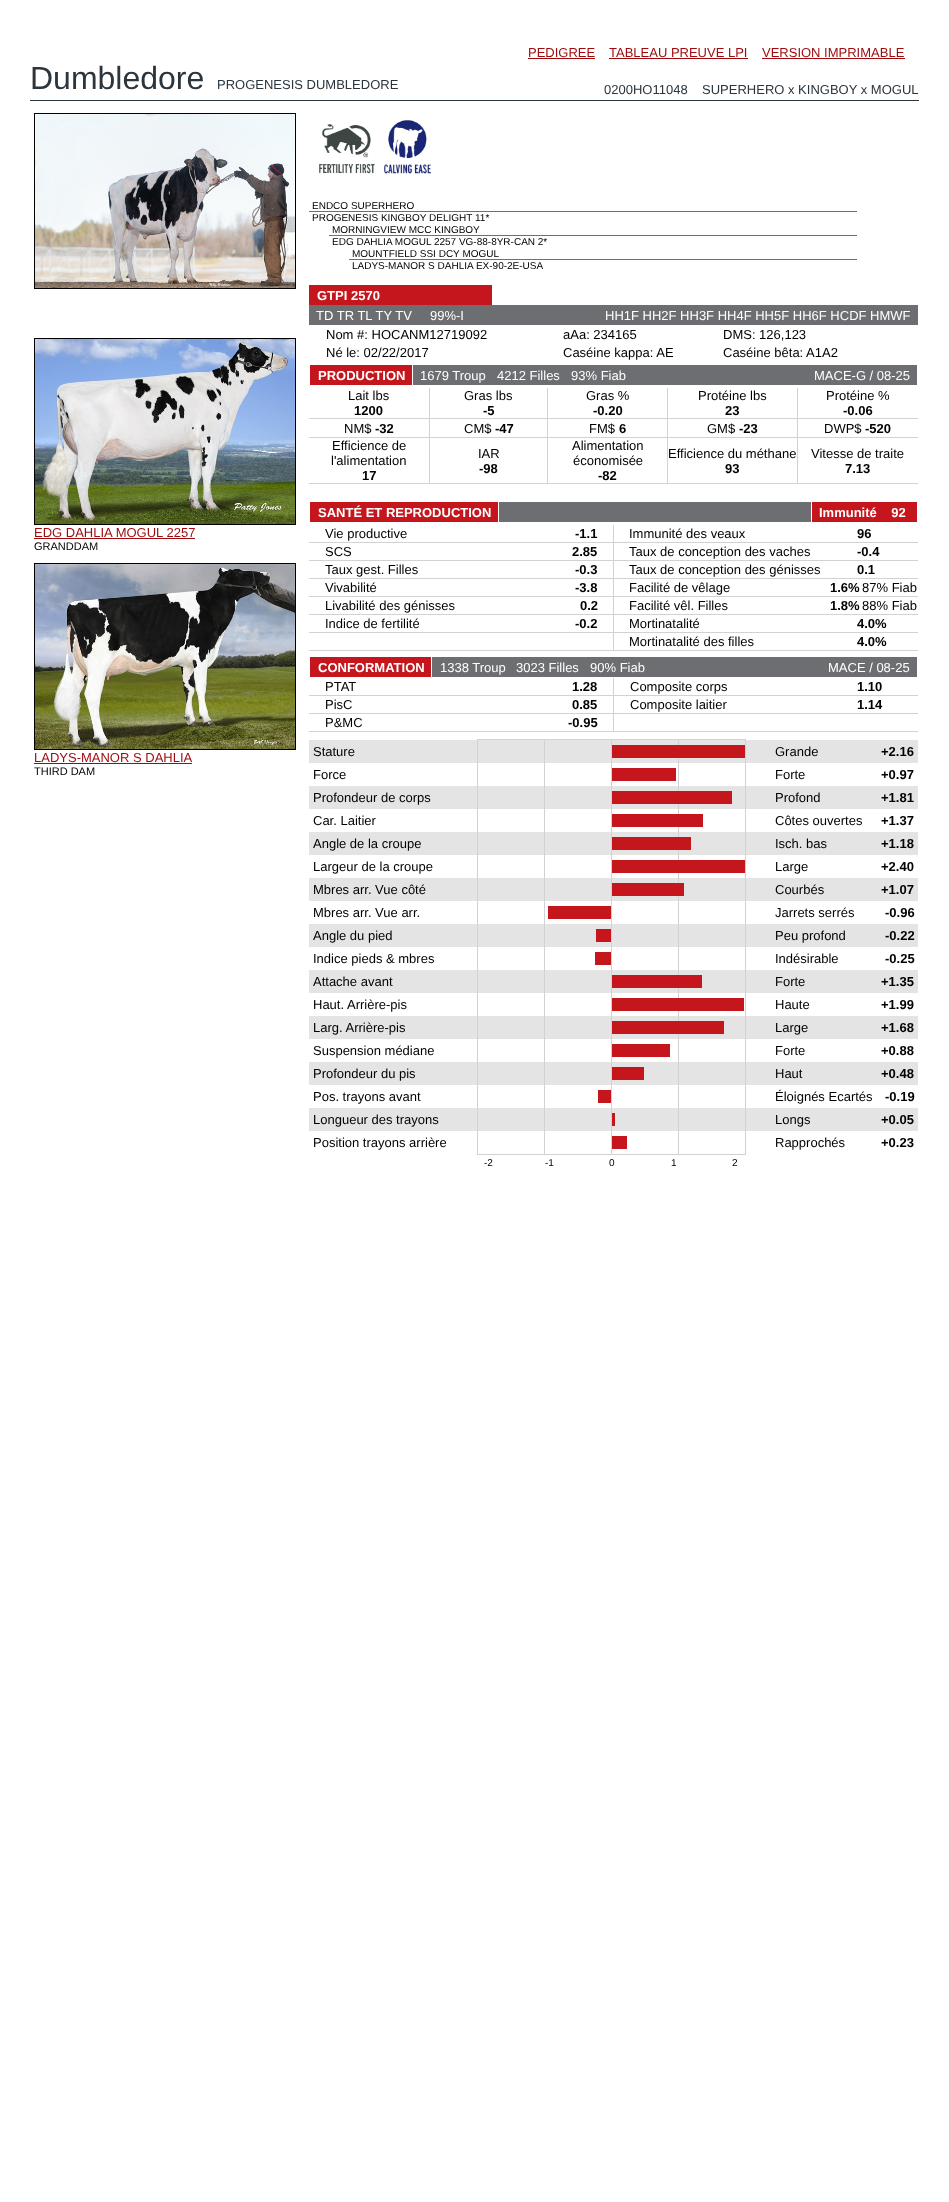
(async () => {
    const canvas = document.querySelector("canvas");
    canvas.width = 949;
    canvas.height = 2202;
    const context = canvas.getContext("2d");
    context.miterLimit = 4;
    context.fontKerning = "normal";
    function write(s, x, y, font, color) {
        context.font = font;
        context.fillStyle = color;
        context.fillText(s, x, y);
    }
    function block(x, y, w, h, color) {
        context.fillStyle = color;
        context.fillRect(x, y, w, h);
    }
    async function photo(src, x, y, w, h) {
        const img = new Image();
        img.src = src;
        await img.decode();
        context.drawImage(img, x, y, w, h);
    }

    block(0, 0, 949, 2202, "rgb(255, 255, 255)");
    write("PEDIGREE", 528, 57, "13px Liberation Sans", "rgb(157, 11, 14)");
    block(528, 58, 67, 1, "rgb(157, 11, 14)");
    write("TABLEAU PREUVE LPI", 609, 57, "13px Liberation Sans", "rgb(157, 11, 14)");
    block(609, 58, 139, 1, "rgb(157, 11, 14)");
    write("VERSION IMPRIMABLE", 762, 57, "13px Liberation Sans", "rgb(157, 11, 14)");
    block(762, 58, 143, 1, "rgb(157, 11, 14)");
    write("Dumbledore", 30, 89, "32px Liberation Sans", "rgb(42, 53, 62)");
    write("PROGENESIS DUMBLEDORE", 217, 89, "13px Liberation Sans", "rgb(42, 53, 62)");
    write("0200HO11048    SUPERHERO x KINGBOY x MOGUL", 604, 94, "13px Liberation Sans", "rgb(42, 53, 62)");
    block(30, 100, 889, 1, "rgb(42, 53, 62)");
    block(34, 113, 262, 176, "rgb(0, 0, 0)");
    await photo("media/1.png", 35, 114, 260, 174);
    block(34, 338, 262, 187, "rgb(0, 0, 0)");
    await photo("media/2.png", 35, 339, 260, 185);
    write("EDG DAHLIA MOGUL 2257", 34, 537, "13px Liberation Sans", "rgb(157, 11, 14)");
    block(34, 538, 161, 1, "rgb(157, 11, 14)");
    write("GRANDDAM", 34, 550, "11px Liberation Sans", "rgb(0, 0, 0)");
    block(34, 563, 262, 187, "rgb(0, 0, 0)");
    await photo("media/3.png", 35, 564, 260, 185);
    write("LADYS-MANOR S DAHLIA", 34, 762, "13px Liberation Sans", "rgb(157, 11, 14)");
    block(34, 763, 158, 1, "rgb(157, 11, 14)");
    write("THIRD DAM", 34, 775, "11px Liberation Sans", "rgb(0, 0, 0)");
    await photo("media/4.png", 319, 124, 56, 50);
    await photo("media/5.png", 384, 119, 47, 55);
    write("ENDCO SUPERHERO", 312, 209, "10px Liberation Sans", "rgb(0, 0, 0)");
    block(309, 211, 548, 1, "rgb(111, 110, 112)");
    write("PROGENESIS KINGBOY DELIGHT 11*", 312, 221, "10px Liberation Sans", "rgb(0, 0, 0)");
    write("MORNINGVIEW MCC KINGBOY", 332, 233, "10px Liberation Sans", "rgb(0, 0, 0)");
    block(329, 235, 528, 1, "rgb(111, 110, 112)");
    write("EDG DAHLIA MOGUL 2257 VG-88-8YR-CAN 2*", 332, 245, "10px Liberation Sans", "rgb(0, 0, 0)");
    write("MOUNTFIELD SSI DCY MOGUL", 352, 257, "10px Liberation Sans", "rgb(0, 0, 0)");
    block(349, 259, 508, 1, "rgb(111, 110, 112)");
    write("LADYS-MANOR S DAHLIA EX-90-2E-USA", 352, 269, "10px Liberation Sans", "rgb(0, 0, 0)");
    block(309, 285, 183, 20, "rgb(196, 22, 28)");
    write("GTPI 2570", 317, 300, "bold 13px Liberation Sans", "rgb(255, 255, 255)");
    block(309, 305, 609, 20, "rgb(109, 110, 113)");
    write("TD TR TL TY TV", 316, 320, "13px Liberation Sans", "rgb(255, 255, 255)");
    write("99%-I", 430, 320, "13px Liberation Sans", "rgb(255, 255, 255)");
    write("HH1F HH2F HH3F HH4F HH5F HH6F HCDF HMWF", 605, 320, "13px Liberation Sans", "rgb(255, 255, 255)");
    write("Nom #: HOCANM12719092", 326, 339, "13px Liberation Sans", "rgb(0, 0, 0)");
    write("aAa: 234165", 563, 339, "13px Liberation Sans", "rgb(0, 0, 0)");
    write("DMS: 126,123", 723, 339, "13px Liberation Sans", "rgb(0, 0, 0)");
    write("Né le: 02/22/2017", 326, 357, "13px Liberation Sans", "rgb(0, 0, 0)");
    write("Caséine kappa: AE", 563, 357, "13px Liberation Sans", "rgb(0, 0, 0)");
    write("Caséine bêta: A1A2", 723, 357, "13px Liberation Sans", "rgb(0, 0, 0)");
    block(310, 365, 102, 20, "rgb(196, 22, 28)");
    write("PRODUCTION", 318, 380, "bold 13px Liberation Sans", "rgb(255, 255, 255)");
    block(413, 365, 504, 20, "rgb(109, 110, 113)");
    write("1679 Troup", 420, 380, "13px Liberation Sans", "rgb(255, 255, 255)");
    write("4212 Filles", 497, 380, "13px Liberation Sans", "rgb(255, 255, 255)");
    write("93% Fiab", 571, 380, "13px Liberation Sans", "rgb(255, 255, 255)");
    write("MACE-G / 08-25", 814, 380, "13px Liberation Sans", "rgb(255, 255, 255)");
    write("Lait lbs", 348, 400, "13px Liberation Sans", "rgb(0, 0, 0)");
    write("1200", 354, 415, "bold 13px Liberation Sans", "rgb(0, 0, 0)");
    block(429, 388, 1, 30, "rgb(209, 210, 212)");
    write("Gras lbs", 464, 400, "13px Liberation Sans", "rgb(0, 0, 0)");
    write("-5", 483, 415, "bold 13px Liberation Sans", "rgb(0, 0, 0)");
    block(547, 388, 1, 30, "rgb(209, 210, 212)");
    write("Gras %", 586, 400, "13px Liberation Sans", "rgb(0, 0, 0)");
    write("-0.20", 593, 415, "bold 13px Liberation Sans", "rgb(0, 0, 0)");
    block(667, 388, 1, 30, "rgb(209, 210, 212)");
    write("Protéine lbs", 698, 400, "13px Liberation Sans", "rgb(0, 0, 0)");
    write("23", 725, 415, "bold 13px Liberation Sans", "rgb(0, 0, 0)");
    block(797, 388, 1, 30, "rgb(209, 210, 212)");
    write("Protéine %", 826, 400, "13px Liberation Sans", "rgb(0, 0, 0)");
    write("-0.06", 843, 415, "bold 13px Liberation Sans", "rgb(0, 0, 0)");
    block(309, 418, 609, 1, "rgb(209, 210, 212)");
    write("NM$", 344, 433, "13px Liberation Sans", "rgb(0, 0, 0)");
    write("-32", 375, 433, "bold 13px Liberation Sans", "rgb(0, 0, 0)");
    block(429, 419, 1, 18, "rgb(209, 210, 212)");
    write("CM$", 464, 433, "13px Liberation Sans", "rgb(0, 0, 0)");
    write("-47", 495, 433, "bold 13px Liberation Sans", "rgb(0, 0, 0)");
    block(547, 419, 1, 18, "rgb(209, 210, 212)");
    write("FM$", 589, 433, "13px Liberation Sans", "rgb(0, 0, 0)");
    write("6", 619, 433, "bold 13px Liberation Sans", "rgb(0, 0, 0)");
    block(667, 419, 1, 18, "rgb(209, 210, 212)");
    write("GM$", 707, 433, "13px Liberation Sans", "rgb(0, 0, 0)");
    write("-23", 739, 433, "bold 13px Liberation Sans", "rgb(0, 0, 0)");
    block(797, 419, 1, 18, "rgb(209, 210, 212)");
    write("DWP$", 824, 433, "13px Liberation Sans", "rgb(0, 0, 0)");
    write("-520", 865, 433, "bold 13px Liberation Sans", "rgb(0, 0, 0)");
    block(309, 437, 609, 1, "rgb(209, 210, 212)");
    write("Efficience de", 332, 450, "13px Liberation Sans", "rgb(0, 0, 0)");
    write("l'alimentation", 331, 465, "13px Liberation Sans", "rgb(0, 0, 0)");
    write("17", 362, 480, "bold 13px Liberation Sans", "rgb(0, 0, 0)");
    block(429, 438, 1, 45, "rgb(209, 210, 212)");
    write("IAR", 478, 458, "13px Liberation Sans", "rgb(0, 0, 0)");
    write("-98", 479, 473, "bold 13px Liberation Sans", "rgb(0, 0, 0)");
    block(547, 438, 1, 45, "rgb(209, 210, 212)");
    write("Alimentation", 572, 450, "13px Liberation Sans", "rgb(0, 0, 0)");
    write("économisée", 573, 465, "13px Liberation Sans", "rgb(0, 0, 0)");
    write("-82", 598, 480, "bold 13px Liberation Sans", "rgb(0, 0, 0)");
    block(667, 438, 1, 45, "rgb(209, 210, 212)");
    write("Efficience du méthane", 668, 458, "13px Liberation Sans", "rgb(0, 0, 0)");
    write("93", 725, 473, "bold 13px Liberation Sans", "rgb(0, 0, 0)");
    block(797, 438, 1, 45, "rgb(209, 210, 212)");
    write("Vitesse de traite", 811, 458, "13px Liberation Sans", "rgb(0, 0, 0)");
    write("7.13", 845, 473, "bold 13px Liberation Sans", "rgb(0, 0, 0)");
    block(309, 483, 609, 1, "rgb(209, 210, 212)");
    block(310, 502, 188, 20, "rgb(196, 22, 28)");
    write("SANTÉ ET REPRODUCTION", 318, 517, "bold 13px Liberation Sans", "rgb(255, 255, 255)");
    block(499, 502, 312, 20, "rgb(109, 110, 113)");
    block(812, 502, 105, 20, "rgb(196, 22, 28)");
    write("Immunité    92", 819, 517, "bold 13px Liberation Sans", "rgb(255, 255, 255)");
    write("Vie productive", 325, 538, "13px Liberation Sans", "rgb(0, 0, 0)");
    write("-1.1", 575, 538, "bold 13px Liberation Sans", "rgb(0, 0, 0)");
    block(613, 525, 1, 17, "rgb(209, 210, 212)");
    write("Immunité des veaux", 629, 538, "13px Liberation Sans", "rgb(0, 0, 0)");
    write("96", 857, 538, "bold 13px Liberation Sans", "rgb(0, 0, 0)");
    block(309, 542, 609, 1, "rgb(209, 210, 212)");
    write("SCS", 325, 556, "13px Liberation Sans", "rgb(0, 0, 0)");
    write("2.85", 572, 556, "bold 13px Liberation Sans", "rgb(0, 0, 0)");
    block(613, 543, 1, 17, "rgb(209, 210, 212)");
    write("Taux de conception des vaches", 629, 556, "13px Liberation Sans", "rgb(0, 0, 0)");
    write("-0.4", 857, 556, "bold 13px Liberation Sans", "rgb(0, 0, 0)");
    block(309, 560, 609, 1, "rgb(209, 210, 212)");
    write("Taux gest. Filles", 325, 574, "13px Liberation Sans", "rgb(0, 0, 0)");
    write("-0.3", 575, 574, "bold 13px Liberation Sans", "rgb(0, 0, 0)");
    block(613, 561, 1, 17, "rgb(209, 210, 212)");
    write("Taux de conception des génisses", 629, 574, "13px Liberation Sans", "rgb(0, 0, 0)");
    write("0.1", 857, 574, "bold 13px Liberation Sans", "rgb(0, 0, 0)");
    block(309, 578, 609, 1, "rgb(209, 210, 212)");
    write("Vivabilité", 325, 592, "13px Liberation Sans", "rgb(0, 0, 0)");
    write("-3.8", 575, 592, "bold 13px Liberation Sans", "rgb(0, 0, 0)");
    block(613, 579, 1, 17, "rgb(209, 210, 212)");
    write("Facilité de vêlage", 629, 592, "13px Liberation Sans", "rgb(0, 0, 0)");
    write("1.6%", 830, 592, "bold 13px Liberation Sans", "rgb(0, 0, 0)");
    write("87% Fiab", 862, 592, "13px Liberation Sans", "rgb(0, 0, 0)");
    block(309, 596, 609, 1, "rgb(209, 210, 212)");
    write("Livabilité des génisses", 325, 610, "13px Liberation Sans", "rgb(0, 0, 0)");
    write("0.2", 580, 610, "bold 13px Liberation Sans", "rgb(0, 0, 0)");
    block(613, 597, 1, 17, "rgb(209, 210, 212)");
    write("Facilité vêl. Filles", 629, 610, "13px Liberation Sans", "rgb(0, 0, 0)");
    write("1.8%", 830, 610, "bold 13px Liberation Sans", "rgb(0, 0, 0)");
    write("88% Fiab", 862, 610, "13px Liberation Sans", "rgb(0, 0, 0)");
    block(309, 614, 609, 1, "rgb(209, 210, 212)");
    write("Indice de fertilité", 325, 628, "13px Liberation Sans", "rgb(0, 0, 0)");
    write("-0.2", 575, 628, "bold 13px Liberation Sans", "rgb(0, 0, 0)");
    block(613, 615, 1, 17, "rgb(209, 210, 212)");
    write("Mortinatalité", 629, 628, "13px Liberation Sans", "rgb(0, 0, 0)");
    write("4.0%", 857, 628, "bold 13px Liberation Sans", "rgb(0, 0, 0)");
    block(309, 632, 609, 1, "rgb(209, 210, 212)");
    block(613, 633, 1, 17, "rgb(209, 210, 212)");
    write("Mortinatalité des filles", 629, 646, "13px Liberation Sans", "rgb(0, 0, 0)");
    write("4.0%", 857, 646, "bold 13px Liberation Sans", "rgb(0, 0, 0)");
    block(309, 650, 609, 1, "rgb(209, 210, 212)");
    block(310, 657, 121, 20, "rgb(196, 22, 28)");
    write("CONFORMATION", 318, 672, "bold 13px Liberation Sans", "rgb(255, 255, 255)");
    block(432, 657, 485, 20, "rgb(109, 110, 113)");
    write("1338 Troup", 440, 672, "13px Liberation Sans", "rgb(255, 255, 255)");
    write("3023 Filles", 516, 672, "13px Liberation Sans", "rgb(255, 255, 255)");
    write("90% Fiab", 590, 672, "13px Liberation Sans", "rgb(255, 255, 255)");
    write("MACE / 08-25", 828, 672, "13px Liberation Sans", "rgb(255, 255, 255)");
    write("PTAT", 325, 691, "13px Liberation Sans", "rgb(0, 0, 0)");
    write("1.28", 572, 691, "bold 13px Liberation Sans", "rgb(0, 0, 0)");
    block(613, 678, 1, 17, "rgb(209, 210, 212)");
    write("Composite corps", 630, 691, "13px Liberation Sans", "rgb(0, 0, 0)");
    write("1.10", 857, 691, "bold 13px Liberation Sans", "rgb(0, 0, 0)");
    block(309, 695, 609, 1, "rgb(209, 210, 212)");
    write("PisC", 325, 709, "13px Liberation Sans", "rgb(0, 0, 0)");
    write("0.85", 572, 709, "bold 13px Liberation Sans", "rgb(0, 0, 0)");
    block(613, 696, 1, 17, "rgb(209, 210, 212)");
    write("Composite laitier", 630, 709, "13px Liberation Sans", "rgb(0, 0, 0)");
    write("1.14", 857, 709, "bold 13px Liberation Sans", "rgb(0, 0, 0)");
    block(309, 713, 609, 1, "rgb(209, 210, 212)");
    write("P&MC", 325, 727, "13px Liberation Sans", "rgb(0, 0, 0)");
    write("-0.95", 568, 727, "bold 13px Liberation Sans", "rgb(0, 0, 0)");
    block(613, 714, 1, 17, "rgb(209, 210, 212)");
    block(309, 731, 609, 1, "rgb(209, 210, 212)");
    block(477, 739, 269, 1, "rgb(209, 210, 212)");
    block(309, 740, 609, 23, "rgb(228, 228, 228)");
    write("Stature", 313, 756, "13px Liberation Sans", "rgb(0, 0, 0)");
    block(309, 786, 609, 23, "rgb(228, 228, 228)");
    block(309, 832, 609, 23, "rgb(228, 228, 228)");
    block(309, 878, 609, 23, "rgb(228, 228, 228)");
    block(309, 924, 609, 23, "rgb(228, 228, 228)");
    block(309, 970, 609, 23, "rgb(228, 228, 228)");
    block(309, 1016, 609, 23, "rgb(228, 228, 228)");
    block(309, 1062, 609, 23, "rgb(228, 228, 228)");
    block(309, 1108, 609, 23, "rgb(228, 228, 228)");
    block(477, 740, 1, 414, "rgb(209, 210, 212)");
    block(544, 740, 1, 414, "rgb(209, 210, 212)");
    block(611, 740, 1, 414, "rgb(209, 210, 212)");
    block(678, 740, 1, 5, "rgb(209, 210, 212)");
    block(678, 758, 1, 33, "rgb(209, 210, 212)");
    block(612, 745, 133, 13, "rgb(196, 22, 28)");
    block(745, 740, 1, 414, "rgb(209, 210, 212)");
    write("Grande", 775, 756, "13px Liberation Sans", "rgb(0, 0, 0)");
    write("+2.16", 881, 756, "bold 13px Liberation Sans", "rgb(0, 0, 0)");
    write("Force", 313, 779, "13px Liberation Sans", "rgb(0, 0, 0)");
    block(612, 768, 64, 13, "rgb(196, 22, 28)");
    write("Forte", 775, 779, "13px Liberation Sans", "rgb(0, 0, 0)");
    write("+0.97", 881, 779, "bold 13px Liberation Sans", "rgb(0, 0, 0)");
    write("Profondeur de corps", 313, 802, "13px Liberation Sans", "rgb(0, 0, 0)");
    block(612, 791, 120, 13, "rgb(196, 22, 28)");
    block(678, 804, 1, 10, "rgb(209, 210, 212)");
    write("Profond", 775, 802, "13px Liberation Sans", "rgb(0, 0, 0)");
    write("+1.81", 881, 802, "bold 13px Liberation Sans", "rgb(0, 0, 0)");
    write("Car. Laitier", 313, 825, "13px Liberation Sans", "rgb(0, 0, 0)");
    block(612, 814, 91, 13, "rgb(196, 22, 28)");
    block(678, 827, 1, 10, "rgb(209, 210, 212)");
    write("Côtes ouvertes", 775, 825, "13px Liberation Sans", "rgb(0, 0, 0)");
    write("+1.37", 881, 825, "bold 13px Liberation Sans", "rgb(0, 0, 0)");
    write("Angle de la croupe", 313, 848, "13px Liberation Sans", "rgb(0, 0, 0)");
    block(612, 837, 79, 13, "rgb(196, 22, 28)");
    block(678, 850, 1, 10, "rgb(209, 210, 212)");
    write("Isch. bas", 775, 848, "13px Liberation Sans", "rgb(0, 0, 0)");
    write("+1.18", 881, 848, "bold 13px Liberation Sans", "rgb(0, 0, 0)");
    write("Largeur de la croupe", 313, 871, "13px Liberation Sans", "rgb(0, 0, 0)");
    block(612, 860, 133, 13, "rgb(196, 22, 28)");
    block(678, 873, 1, 10, "rgb(209, 210, 212)");
    write("Large", 775, 871, "13px Liberation Sans", "rgb(0, 0, 0)");
    write("+2.40", 881, 871, "bold 13px Liberation Sans", "rgb(0, 0, 0)");
    write("Mbres arr. Vue côté", 313, 894, "13px Liberation Sans", "rgb(0, 0, 0)");
    block(612, 883, 72, 13, "rgb(196, 22, 28)");
    block(678, 896, 1, 79, "rgb(209, 210, 212)");
    write("Courbés", 775, 894, "13px Liberation Sans", "rgb(0, 0, 0)");
    write("+1.07", 881, 894, "bold 13px Liberation Sans", "rgb(0, 0, 0)");
    write("Mbres arr. Vue arr.", 313, 917, "13px Liberation Sans", "rgb(0, 0, 0)");
    block(548, 906, 63, 13, "rgb(196, 22, 28)");
    write("Jarrets serrés", 775, 917, "13px Liberation Sans", "rgb(0, 0, 0)");
    write("-0.96", 885, 917, "bold 13px Liberation Sans", "rgb(0, 0, 0)");
    write("Angle du pied", 313, 940, "13px Liberation Sans", "rgb(0, 0, 0)");
    block(596, 929, 15, 13, "rgb(196, 22, 28)");
    write("Peu profond", 775, 940, "13px Liberation Sans", "rgb(0, 0, 0)");
    write("-0.22", 885, 940, "bold 13px Liberation Sans", "rgb(0, 0, 0)");
    write("Indice pieds & mbres", 313, 963, "13px Liberation Sans", "rgb(0, 0, 0)");
    block(595, 952, 16, 13, "rgb(196, 22, 28)");
    write("Indésirable", 775, 963, "13px Liberation Sans", "rgb(0, 0, 0)");
    write("-0.25", 885, 963, "bold 13px Liberation Sans", "rgb(0, 0, 0)");
    write("Attache avant", 313, 986, "13px Liberation Sans", "rgb(0, 0, 0)");
    block(612, 975, 90, 13, "rgb(196, 22, 28)");
    block(678, 988, 1, 10, "rgb(209, 210, 212)");
    write("Forte", 775, 986, "13px Liberation Sans", "rgb(0, 0, 0)");
    write("+1.35", 881, 986, "bold 13px Liberation Sans", "rgb(0, 0, 0)");
    write("Haut. Arrière-pis", 313, 1009, "13px Liberation Sans", "rgb(0, 0, 0)");
    block(612, 998, 132, 13, "rgb(196, 22, 28)");
    block(678, 1011, 1, 10, "rgb(209, 210, 212)");
    write("Haute", 775, 1009, "13px Liberation Sans", "rgb(0, 0, 0)");
    write("+1.99", 881, 1009, "bold 13px Liberation Sans", "rgb(0, 0, 0)");
    write("Larg. Arrière-pis", 313, 1032, "13px Liberation Sans", "rgb(0, 0, 0)");
    block(612, 1021, 112, 13, "rgb(196, 22, 28)");
    block(678, 1034, 1, 120, "rgb(209, 210, 212)");
    write("Large", 775, 1032, "13px Liberation Sans", "rgb(0, 0, 0)");
    write("+1.68", 881, 1032, "bold 13px Liberation Sans", "rgb(0, 0, 0)");
    write("Suspension médiane", 313, 1055, "13px Liberation Sans", "rgb(0, 0, 0)");
    block(612, 1044, 58, 13, "rgb(196, 22, 28)");
    write("Forte", 775, 1055, "13px Liberation Sans", "rgb(0, 0, 0)");
    write("+0.88", 881, 1055, "bold 13px Liberation Sans", "rgb(0, 0, 0)");
    write("Profondeur du pis", 313, 1078, "13px Liberation Sans", "rgb(0, 0, 0)");
    block(612, 1067, 32, 13, "rgb(196, 22, 28)");
    write("Haut", 775, 1078, "13px Liberation Sans", "rgb(0, 0, 0)");
    write("+0.48", 881, 1078, "bold 13px Liberation Sans", "rgb(0, 0, 0)");
    write("Pos. trayons avant", 313, 1101, "13px Liberation Sans", "rgb(0, 0, 0)");
    block(598, 1090, 13, 13, "rgb(196, 22, 28)");
    write("Éloignés Ecartés", 775, 1101, "13px Liberation Sans", "rgb(0, 0, 0)");
    write("-0.19", 885, 1101, "bold 13px Liberation Sans", "rgb(0, 0, 0)");
    write("Longueur des trayons", 313, 1124, "13px Liberation Sans", "rgb(0, 0, 0)");
    block(612, 1113, 3, 13, "rgb(196, 22, 28)");
    write("Longs", 775, 1124, "13px Liberation Sans", "rgb(0, 0, 0)");
    write("+0.05", 881, 1124, "bold 13px Liberation Sans", "rgb(0, 0, 0)");
    write("Position trayons arrière", 313, 1147, "13px Liberation Sans", "rgb(0, 0, 0)");
    block(612, 1136, 15, 13, "rgb(196, 22, 28)");
    write("Rapprochés", 775, 1147, "13px Liberation Sans", "rgb(0, 0, 0)");
    write("+0.23", 881, 1147, "bold 13px Liberation Sans", "rgb(0, 0, 0)");
    block(477, 1154, 269, 1, "rgb(209, 210, 212)");
    write("-2", 484, 1166, "10px Liberation Sans", "rgb(0, 0, 0)");
    write("-1", 545, 1166, "10px Liberation Sans", "rgb(0, 0, 0)");
    write("0", 609, 1166, "10px Liberation Sans", "rgb(0, 0, 0)");
    write("1", 671, 1166, "10px Liberation Sans", "rgb(0, 0, 0)");
    write("2", 732, 1166, "10px Liberation Sans", "rgb(0, 0, 0)");
})();
